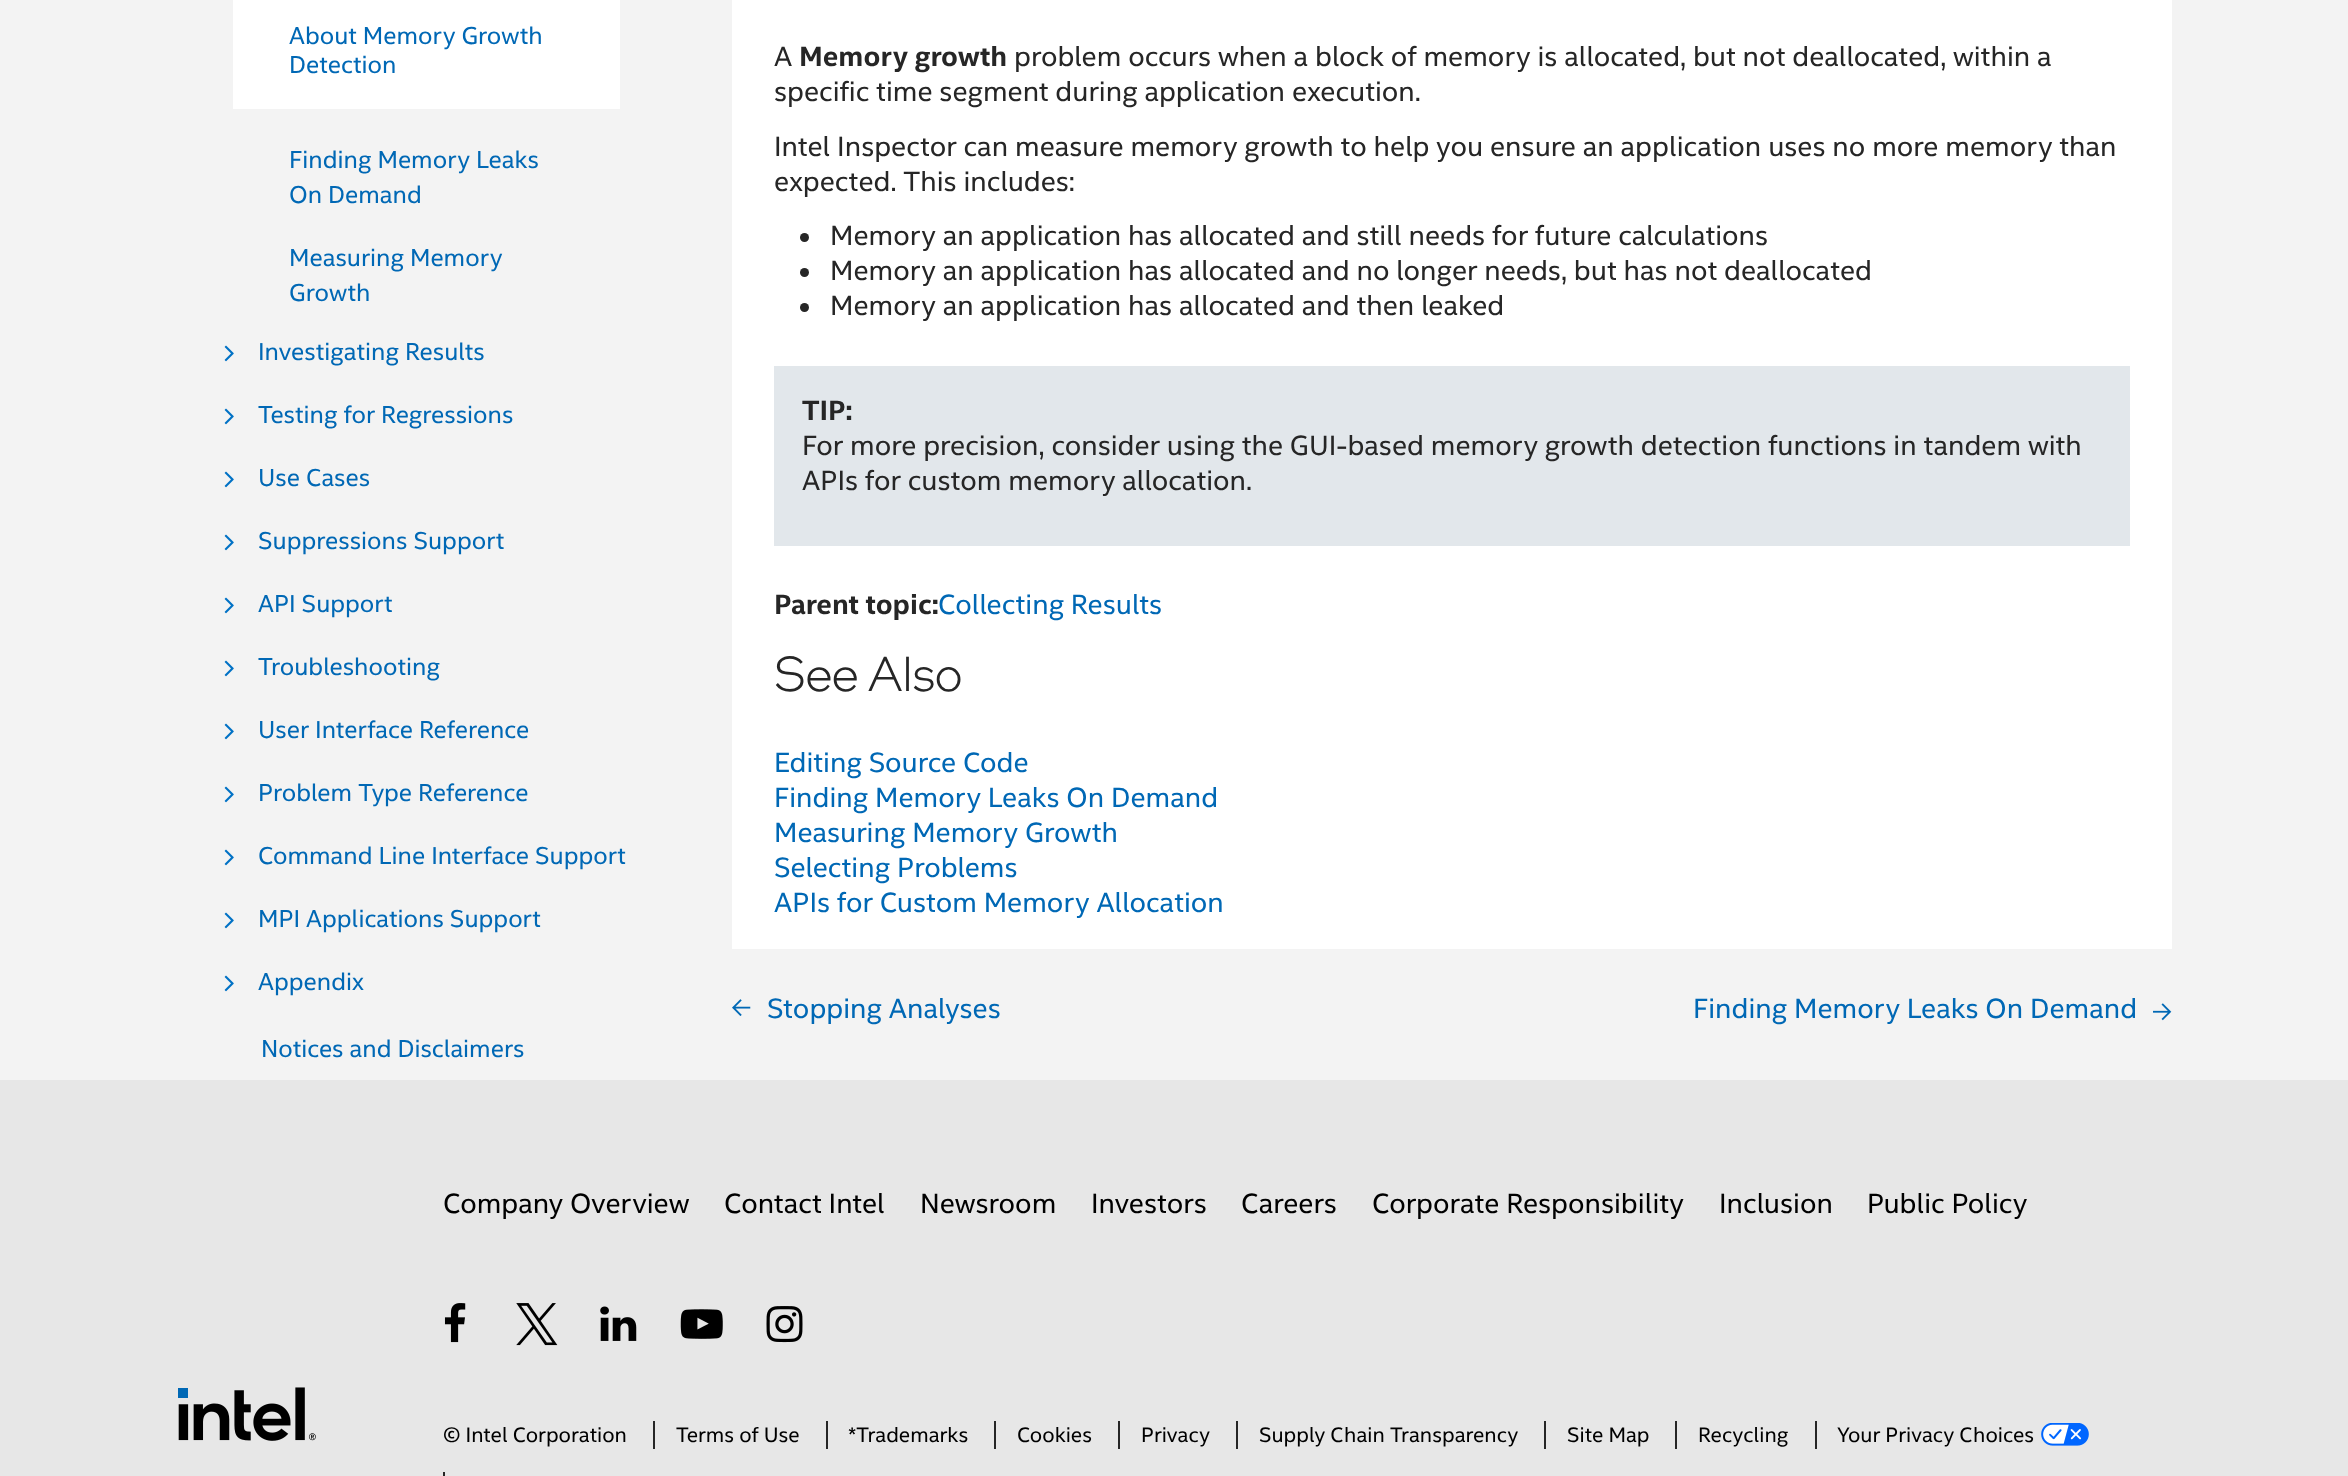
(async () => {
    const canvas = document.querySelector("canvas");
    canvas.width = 2348;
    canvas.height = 1476;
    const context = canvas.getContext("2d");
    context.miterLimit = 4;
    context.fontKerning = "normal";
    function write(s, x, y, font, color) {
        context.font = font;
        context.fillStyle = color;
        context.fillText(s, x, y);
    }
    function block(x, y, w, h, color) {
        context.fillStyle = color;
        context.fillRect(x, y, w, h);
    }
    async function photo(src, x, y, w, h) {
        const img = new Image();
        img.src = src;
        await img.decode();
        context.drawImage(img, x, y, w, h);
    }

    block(0, 0, 2348, 1476, "rgb(243, 243, 243)");
    block(233, 0, 387, 109, "rgb(255, 255, 255)");
    write("About Memory Growth", 289, 44, "24.5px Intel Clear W", "rgb(0, 104, 181)");
    write("Detection", 289, 73, "24.5px Intel Clear W", "rgb(0, 104, 181)");
    write("Finding Memory Leaks", 289, 168, "24.5px Intel Clear W", "rgb(0, 104, 181)");
    write("On Demand", 289, 203, "24.5px Intel Clear W", "rgb(0, 104, 181)");
    write("Measuring Memory", 289, 266, "24.5px Intel Clear W", "rgb(0, 104, 181)");
    write("Growth", 289, 301, "24.5px Intel Clear W", "rgb(0, 104, 181)");
    await photo("media/1.png", 224, 345, 10, 17);
    write("Investigating Results", 258, 360, "24.5px Intel Clear W", "rgb(0, 104, 181)");
    await photo("media/1.png", 224, 408, 10, 17);
    write("Testing for Regressions", 258, 423, "24.5px Intel Clear W", "rgb(0, 104, 181)");
    await photo("media/1.png", 224, 471, 10, 17);
    write("Use Cases", 258, 486, "24.5px Intel Clear W", "rgb(0, 104, 181)");
    await photo("media/1.png", 224, 534, 10, 17);
    write("Suppressions Support", 258, 549, "24.5px Intel Clear W", "rgb(0, 104, 181)");
    await photo("media/1.png", 224, 597, 10, 17);
    write("API Support", 258, 612, "24.5px Intel Clear W", "rgb(0, 104, 181)");
    await photo("media/1.png", 224, 660, 10, 17);
    write("Troubleshooting", 258, 675, "24.5px Intel Clear W", "rgb(0, 104, 181)");
    await photo("media/1.png", 224, 723, 10, 17);
    write("User Interface Reference", 258, 738, "24.5px Intel Clear W", "rgb(0, 104, 181)");
    await photo("media/1.png", 224, 786, 10, 17);
    write("Problem Type Reference", 258, 801, "24.5px Intel Clear W", "rgb(0, 104, 181)");
    await photo("media/1.png", 224, 849, 10, 17);
    write("Command Line Interface Support", 258, 864, "24.5px Intel Clear W", "rgb(0, 104, 181)");
    await photo("media/1.png", 224, 912, 10, 17);
    write("MPI Applications Support", 258, 927, "24.5px Intel Clear W", "rgb(0, 104, 181)");
    await photo("media/1.png", 224, 975, 10, 17);
    write("Appendix", 258, 990, "24.5px Intel Clear W", "rgb(0, 104, 181)");
    write("Notices and Disclaimers", 261, 1057, "24.5px Intel Clear W", "rgb(0, 104, 181)");
    block(732, 0, 1440, 949, "rgb(255, 255, 255)");
    write("A", 774, 66, "28px Intel Clear W", "rgb(38, 38, 38)");
    write("Memory growth", 799, 66, "bold 28px Intel Clear W", "rgb(38, 38, 38)");
    write("problem occurs when a block of memory is allocated, but not deallocated, within a", 1014, 66, "28px Intel Clear W", "rgb(38, 38, 38)");
    write("specific time segment during application execution.", 774, 101, "28px Intel Clear W", "rgb(38, 38, 38)");
    write("Intel Inspector can measure memory growth to help you ensure an application uses no more memory than", 774, 156, "28px Intel Clear W", "rgb(38, 38, 38)");
    write("expected. This includes:", 774, 191, "28px Intel Clear W", "rgb(38, 38, 38)");
    context.beginPath();
    context.arc(804.5, 237.5, 4.5, 0, Math.PI * 2);
    context.fill();
    write("Memory an application has allocated and still needs for future calculations", 830, 245, "28px Intel Clear W", "rgb(38, 38, 38)");
    context.beginPath();
    context.arc(804.5, 272.5, 4.5, 0, Math.PI * 2);
    context.fill();
    write("Memory an application has allocated and no longer needs, but has not deallocated", 830, 280, "28px Intel Clear W", "rgb(38, 38, 38)");
    context.beginPath();
    context.arc(804.5, 307.5, 4.5, 0, Math.PI * 2);
    context.fill();
    write("Memory an application has allocated and then leaked", 830, 315, "28px Intel Clear W", "rgb(38, 38, 38)");
    block(774, 366, 1356, 180, "rgb(226, 231, 235)");
    write("TIP:", 802, 420, "bold 28px Intel Clear W", "rgb(38, 38, 38)");
    write("For more precision, consider using the GUI-based memory growth detection functions in tandem with", 802, 455, "28px Intel Clear W", "rgb(38, 38, 38)");
    write("APIs for custom memory allocation.", 802, 490, "28px Intel Clear W", "rgb(38, 38, 38)");
    write("Parent topic:", 774, 614, "bold 28px Intel Clear W", "rgb(38, 38, 38)");
    write("Collecting Results", 938, 614, "28px Intel Clear W", "rgb(0, 104, 181)");
    write("See Also", 774, 691, "300 49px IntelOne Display", "rgb(38, 38, 38)");
    write("Editing Source Code", 774, 772, "28px Intel Clear W", "rgb(0, 104, 181)");
    write("Finding Memory Leaks On Demand", 774, 807, "28px Intel Clear W", "rgb(0, 104, 181)");
    write("Measuring Memory Growth", 774, 842, "28px Intel Clear W", "rgb(0, 104, 181)");
    write("Selecting Problems", 774, 877, "28px Intel Clear W", "rgb(0, 104, 181)");
    write("APIs for Custom Memory Allocation", 774, 912, "28px Intel Clear W", "rgb(0, 104, 181)");
    await photo("media/2.png", 732, 999, 19, 17);
    write("Stopping Analyses", 767, 1018, "28px Intel Clear W", "rgb(0, 104, 181)");
    write("Finding Memory Leaks On Demand", 1693, 1018, "28px Intel Clear W", "rgb(0, 104, 181)");
    await photo("media/3.png", 2153, 1003, 19, 18);
    block(0, 1080, 2348, 396, "rgb(231, 231, 231)");
    await photo("media/4.png", 178, 1387, 138, 54);
    write("Company Overview", 443, 1213, "28px Intel Clear W", "rgb(0, 0, 0)");
    write("Contact Intel", 724, 1213, "28px Intel Clear W", "rgb(0, 0, 0)");
    write("Newsroom", 920, 1213, "28px Intel Clear W", "rgb(0, 0, 0)");
    write("Investors", 1091, 1213, "28px Intel Clear W", "rgb(0, 0, 0)");
    write("Careers", 1241, 1213, "28px Intel Clear W", "rgb(0, 0, 0)");
    write("Corporate Responsibility", 1372, 1213, "28px Intel Clear W", "rgb(0, 0, 0)");
    write("Inclusion", 1719, 1213, "28px Intel Clear W", "rgb(0, 0, 0)");
    write("Public Policy", 1867, 1213, "28px Intel Clear W", "rgb(0, 0, 0)");
    await photo("media/5.png", 444, 1303, 22, 40);
    await photo("media/6.png", 516, 1303, 42, 43);
    await photo("media/7.png", 600, 1306, 37, 35);
    await photo("media/8.png", 680, 1309, 43, 30);
    await photo("media/9.png", 766, 1306, 37, 37);
    write("© Intel Corporation", 443, 1442, "21px Intel Clear W", "rgb(0, 0, 0)");
    write("Terms of Use", 676, 1442, "21px Intel Clear W", "rgb(0, 0, 0)");
    block(653, 1421, 2, 28, "rgb(38, 38, 38)");
    write("*Trademarks", 848, 1442, "21px Intel Clear W", "rgb(0, 0, 0)");
    block(826, 1421, 2, 28, "rgb(38, 38, 38)");
    write("Cookies", 1017, 1442, "21px Intel Clear W", "rgb(0, 0, 0)");
    block(994, 1421, 2, 28, "rgb(38, 38, 38)");
    write("Privacy", 1141, 1442, "21px Intel Clear W", "rgb(0, 0, 0)");
    block(1118, 1421, 2, 28, "rgb(38, 38, 38)");
    write("Supply Chain Transparency", 1259, 1442, "21px Intel Clear W", "rgb(0, 0, 0)");
    block(1236, 1421, 2, 28, "rgb(38, 38, 38)");
    write("Site Map", 1567, 1442, "21px Intel Clear W", "rgb(0, 0, 0)");
    block(1544, 1421, 2, 28, "rgb(38, 38, 38)");
    write("Recycling", 1698, 1442, "21px Intel Clear W", "rgb(0, 0, 0)");
    block(1675, 1421, 2, 28, "rgb(38, 38, 38)");
    block(1815, 1421, 2, 28, "rgb(38, 38, 38)");
    write("Your Privacy Choices", 1837, 1442, "21px Intel Clear W", "rgb(0, 0, 0)");
    await photo("media/10.png", 2041, 1423, 48, 23);
    block(443, 1472, 2, 4, "rgb(38, 38, 38)");
})();
